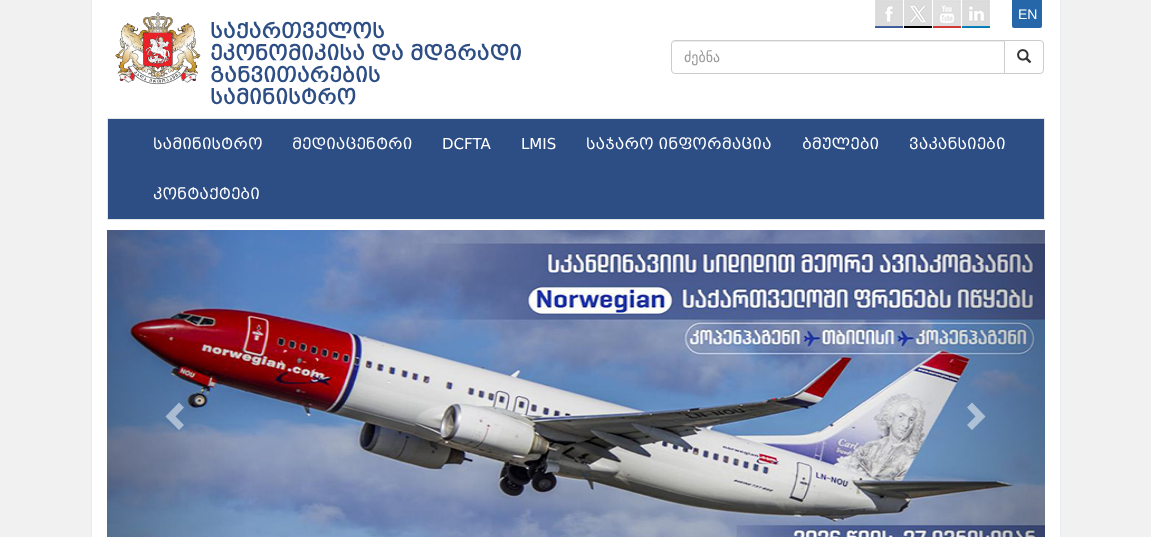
(async () => {
    const canvas = document.querySelector("canvas");
    canvas.width = 1151;
    canvas.height = 537;
    const context = canvas.getContext("2d");
    context.miterLimit = 4;
    context.fontKerning = "normal";
    function write(s, x, y, font, color) {
        context.font = font;
        context.fillStyle = color;
        context.fillText(s, x, y);
    }
    function block(x, y, w, h, color) {
        context.fillStyle = color;
        context.fillRect(x, y, w, h);
    }
    async function photo(src, x, y, w, h) {
        const img = new Image();
        img.src = src;
        await img.decode();
        context.drawImage(img, x, y, w, h);
    }

    block(0, 0, 1151, 537, "rgb(241, 241, 241)");
    block(92, 0, 968, 537, "rgb(255, 255, 255)");
    block(1060, 0, 1, 537, "rgb(230, 235, 241)");
    block(91, 0, 1, 537, "rgb(230, 235, 241)");
    await photo("media/1.png", 115, 12, 86, 73);
    write("საქართველოს", 210, 38, "bold 20px 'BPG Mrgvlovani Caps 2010'", "rgb(45, 78, 133)");
    write("ეკონომიკისა და მდგრადი", 210, 60, "bold 20px 'BPG Mrgvlovani Caps 2010'", "rgb(45, 78, 133)");
    write("განვითარების", 210, 82, "bold 20px 'BPG Mrgvlovani Caps 2010'", "rgb(45, 78, 133)");
    write("სამინისტრო", 210, 104, "bold 20px 'BPG Mrgvlovani Caps 2010'", "rgb(45, 78, 133)");
    await photo("media/2.png", 875, 0, 28, 28);
    await photo("media/3.png", 904, 0, 28, 28);
    await photo("media/4.png", 933, 0, 28, 28);
    await photo("media/5.png", 962, 0, 28, 28);
    context.fillStyle = "rgb(37, 103, 169)";
    context.beginPath();
    context.roundRect(1012, 0, 30, 28, [0, 0, 2, 2]);
    context.fill();
    write("EN", 1018, 19, "14px Liberation Sans", "rgb(255, 255, 255)");
    context.fillStyle = "rgb(236, 236, 236)";
    context.beginPath();
    context.moveTo(675, 42);
    context.lineTo(1004, 42);
    context.lineTo(1004, 41);
    context.lineTo(675, 41);
    context.bezierCurveTo(673, 41, 672, 43, 672, 45);
    context.bezierCurveTo(672, 43, 673, 42, 675, 42);
    context.closePath();
    context.fill();
    context.beginPath();
    context.roundRect(671.5, 40.5, 333, 33, [3.5, 0, 0, 3.5]);
    context.strokeStyle = "rgb(204, 204, 204)";
    context.stroke();
    write("ძებნა", 684, 62, "14px DejaVu Sans", "rgb(153, 153, 153)");
    context.fillStyle = "rgb(255, 255, 255)";
    context.beginPath();
    context.roundRect(1004.5, 40.5, 39, 33, [0, 3.5, 3.5, 0]);
    context.fill();
    context.stroke();
    await photo("media/6.png", 1017, 49, 15, 14);
    context.fillStyle = "rgb(45, 78, 133)";
    context.beginPath();
    context.rect(107.5, 118.5, 937, 101);
    context.fill();
    context.strokeStyle = "rgb(231, 231, 231)";
    context.stroke();
    write("სამინისტრო", 153, 149, "15px 'BPG Mrgvlovani Caps 2010'", "rgb(255, 255, 255)");
    write("მედიაცენტრი", 292, 149, "15px 'BPG Mrgvlovani Caps 2010'", "rgb(255, 255, 255)");
    write("DCFTA", 442, 149, "15px 'BPG Mrgvlovani Caps 2010'", "rgb(255, 255, 255)");
    write("LMIS", 521, 149, "15px 'BPG Mrgvlovani Caps 2010'", "rgb(255, 255, 255)");
    write("საჯარო ინფორმაცია", 586, 149, "15px 'BPG Mrgvlovani Caps 2010'", "rgb(255, 255, 255)");
    write("ბმულები", 802, 149, "15px 'BPG Mrgvlovani Caps 2010'", "rgb(255, 255, 255)");
    write("ვაკანსიები", 909, 149, "15px 'BPG Mrgvlovani Caps 2010'", "rgb(255, 255, 255)");
    write("კონტაქტები", 153, 199, "15px 'BPG Mrgvlovani Caps 2010'", "rgb(255, 255, 255)");
    await photo("media/7.png", 107, 230, 938, 307);
    context.fillStyle = "rgba(255, 255, 255, 0.5)";
    context.beginPath();
    context.moveTo(184, 407.5);
    context.lineTo(175.5, 416.5);
    context.lineTo(184, 425);
    context.lineTo(179, 430);
    context.lineTo(165.5, 416.5);
    context.lineTo(179, 402.5);
    context.closePath();
    context.fill();
    context.beginPath();
    context.moveTo(985.5, 416.5);
    context.lineTo(972, 430);
    context.lineTo(967, 425);
    context.lineTo(975.5, 416.5);
    context.lineTo(967, 407.5);
    context.lineTo(972, 402.5);
    context.closePath();
    context.fill();
})();
